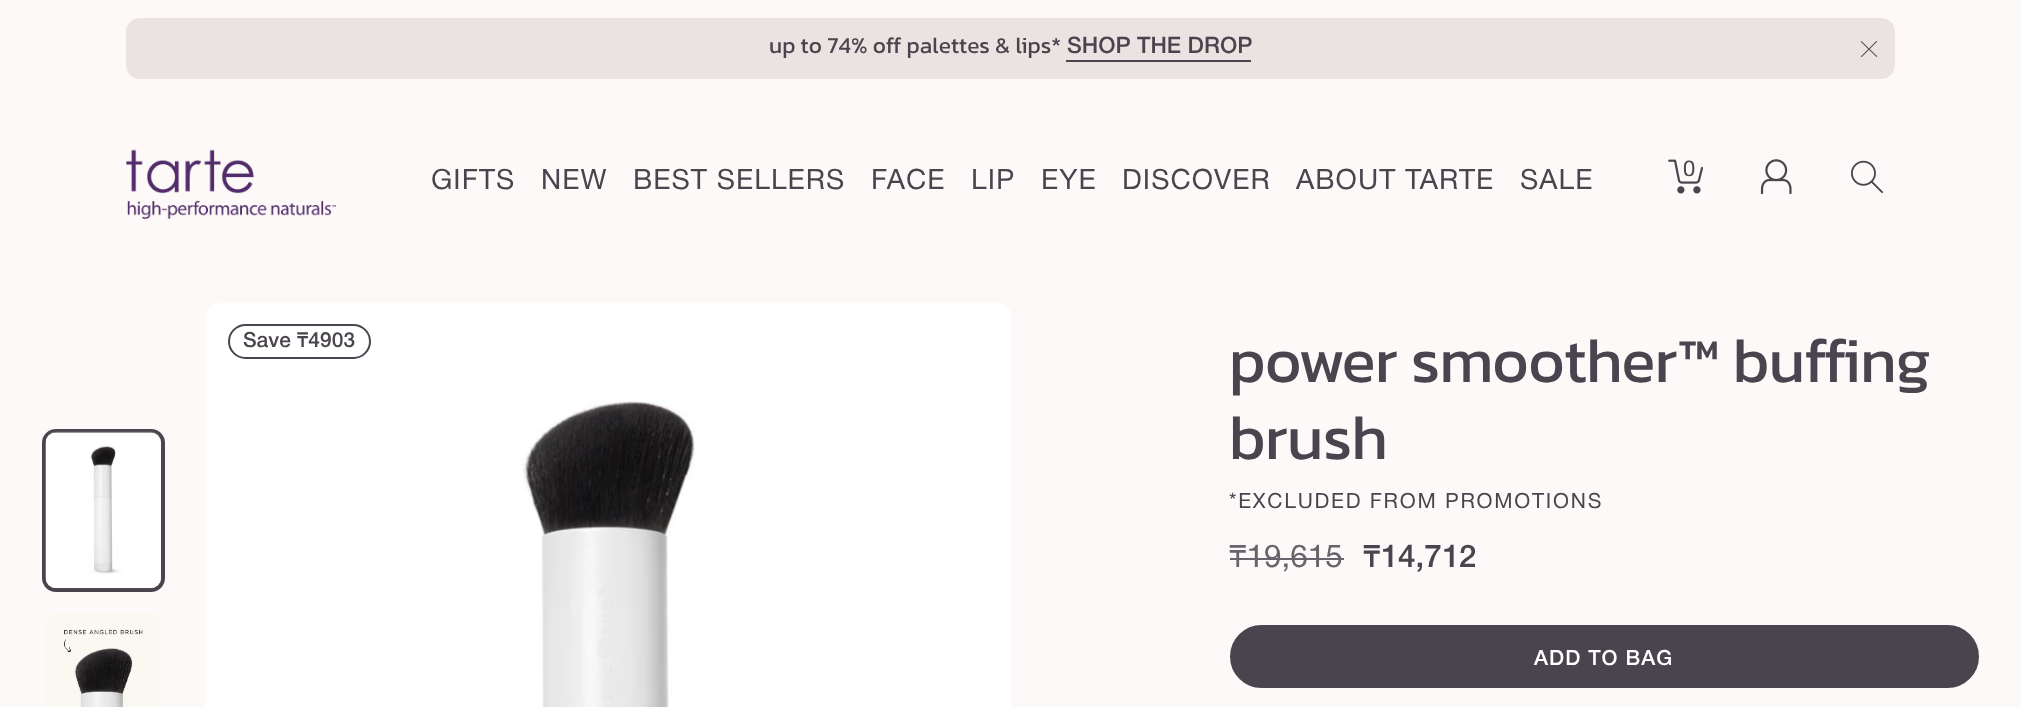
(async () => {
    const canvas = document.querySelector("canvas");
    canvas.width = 2021;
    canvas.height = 707;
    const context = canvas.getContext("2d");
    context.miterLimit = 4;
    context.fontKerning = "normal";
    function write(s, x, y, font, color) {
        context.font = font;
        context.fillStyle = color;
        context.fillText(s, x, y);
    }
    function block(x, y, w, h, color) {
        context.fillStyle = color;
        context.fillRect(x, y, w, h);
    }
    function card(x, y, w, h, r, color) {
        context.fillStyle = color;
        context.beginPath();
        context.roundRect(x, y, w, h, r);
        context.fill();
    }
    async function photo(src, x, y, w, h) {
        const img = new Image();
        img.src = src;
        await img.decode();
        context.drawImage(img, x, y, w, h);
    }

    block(0, 0, 2021, 707, "rgb(253, 249, 249)");
    card(126, 18, 1769, 61, 14, "rgb(234, 227, 225)");
    write("up to 74% off palettes & lips*", 769, 53, "22.75px Kanit", "rgb(74, 68, 78)");
    write("SHOP THE DROP", 1067, 53, "500 22.75px Helvetica Neue", "rgb(74, 68, 78)");
    block(1066, 60, 185, 2, "rgb(74, 68, 78)");
    await photo("media/1.png", 1860, 41, 18, 16);
    await photo("media/2.png", 126, 149, 210, 70);
    context.letterSpacing = "1.1px";
    write("GIFTS", 431, 189, "28px Helvetica Neue", "rgb(74, 68, 78)");
    write("NEW", 541, 189, "28px Helvetica Neue", "rgb(74, 68, 78)");
    write("BEST SELLERS", 633, 189, "28px Helvetica Neue", "rgb(74, 68, 78)");
    write("FACE", 871, 189, "28px Helvetica Neue", "rgb(74, 68, 78)");
    write("LIP", 971, 189, "28px Helvetica Neue", "rgb(74, 68, 78)");
    write("EYE", 1041, 189, "28px Helvetica Neue", "rgb(74, 68, 78)");
    write("DISCOVER", 1122, 189, "28px Helvetica Neue", "rgb(74, 68, 78)");
    write("ABOUT TARTE", 1296, 189, "28px Helvetica Neue", "rgb(74, 68, 78)");
    write("SALE", 1520, 189, "28px Helvetica Neue", "rgb(74, 68, 78)");
    await photo("media/3.png", 1668, 159, 35, 35);
    context.letterSpacing = "0px";
    write("0", 1683, 176, "22px Helvetica Neue", "rgb(74, 68, 78)");
    await photo("media/4.png", 1760, 159, 32, 35);
    await photo("media/5.png", 1851, 160, 32, 34);
    await photo("media/6.png", 206, 303, 805, 404);
    context.beginPath();
    context.roundRect(229, 325, 141, 33, 16.5);
    context.strokeStyle = "rgb(74, 68, 78)";
    context.lineWidth = 2;
    context.stroke();
    write("Save ₸4903", 243, 347, "500 21px Helvetica Neue", "rgb(74, 68, 78)");
    context.beginPath();
    context.roundRect(44, 431, 119, 159, 12);
    context.lineWidth = 4;
    context.stroke();
    await photo("media/7.png", 45, 431, 116, 158);
    await photo("media/8.png", 46, 613, 115, 94);
    context.letterSpacing = "-0.6px";
    write("power smoother™ buffing", 1229, 382, "63px Kanit", "rgb(74, 68, 78)");
    write("brush", 1229, 459, "63px Kanit", "rgb(74, 68, 78)");
    context.letterSpacing = "1.75px";
    write("*EXCLUDED FROM PROMOTIONS", 1229, 508, "21px Helvetica Neue", "rgb(74, 68, 78)");
    context.letterSpacing = "0px";
    write("₸19,615", 1229, 567, "31.5px Helvetica Neue", "rgb(105, 100, 108)");
    block(1230, 558, 114, 2, "rgb(105, 100, 108)");
    write("₸14,712", 1363, 567, "500 31.5px Helvetica Neue", "rgb(74, 68, 78)");
    context.beginPath();
    context.roundRect(1231, 626, 747, 61, 30.5);
    context.fill();
    context.lineWidth = 2;
    context.stroke();
    context.letterSpacing = "1px";
    write("ADD TO BAG", 1534, 665, "500 21px Helvetica Neue", "rgb(255, 255, 255)");
})();
